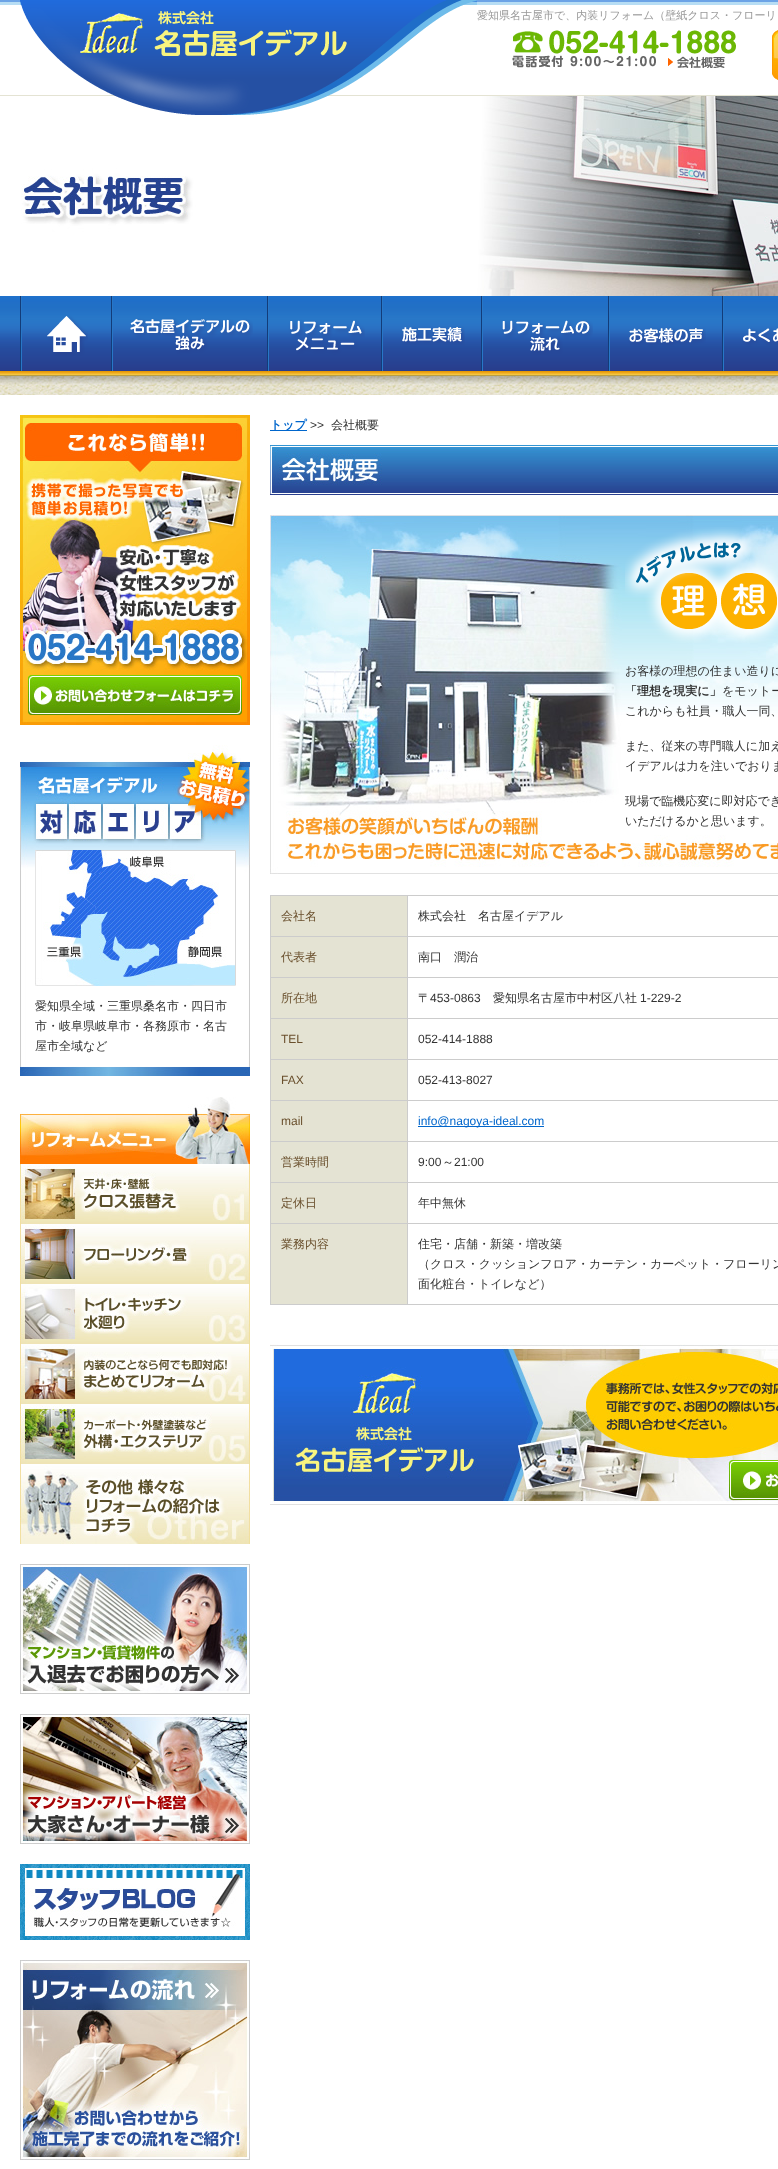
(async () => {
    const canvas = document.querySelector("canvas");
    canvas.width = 778;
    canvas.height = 2169;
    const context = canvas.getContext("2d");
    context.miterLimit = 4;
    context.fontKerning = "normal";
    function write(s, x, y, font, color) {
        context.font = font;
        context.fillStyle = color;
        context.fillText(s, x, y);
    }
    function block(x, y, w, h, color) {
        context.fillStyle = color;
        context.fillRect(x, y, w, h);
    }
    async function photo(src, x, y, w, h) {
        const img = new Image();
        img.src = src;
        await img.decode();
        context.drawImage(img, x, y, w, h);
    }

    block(0, 0, 778, 2169, "rgb(255, 255, 255)");
    await photo("media/1.png", 0, 376, 778, 19);
    await photo("media/2.png", 0, 0, 778, 96);
    await photo("media/8.png", 21, 96, 757, 200);
    await photo("media/3.png", 20, 0, 457, 115);
    write("愛知県名古屋市で、内装リフォーム（壁紙クロス・フローリ", 477, 19, "500 11px WenQuanYi Zen Hei", "rgb(153, 153, 153)");
    await photo("media/4.png", 513, 30, 223, 24);
    await photo("media/5.png", 512, 55, 144, 13);
    await photo("media/6.png", 668, 56, 57, 12);
    await photo("media/7.png", 772, 30, 6, 50);
    await photo("media/9.png", 0, 296, 778, 89);
    await photo("media/10.png", 20, 296, 68, 75);
    await photo("media/11.png", 111, 296, 142, 75);
    await photo("media/12.png", 267, 296, 98, 75);
    await photo("media/13.png", 381, 296, 84, 75);
    await photo("media/14.png", 481, 296, 112, 75);
    await photo("media/15.png", 608, 296, 98, 75);
    await photo("media/16.png", 722, 296, 56, 75);
    await photo("media/17.png", 20, 415, 230, 310);
    await photo("media/18.png", 28, 675, 214, 40);
    await photo("media/19.png", 20, 745, 230, 321);
    await photo("media/20.png", 35, 850, 201, 136);
    write("愛知県全域・三重県桑名市・四日市", 35, 1010, "500 12px WenQuanYi Zen Hei", "rgb(51, 51, 51)");
    write("市・岐阜県岐阜市・各務原市・名古", 35, 1030, "500 12px WenQuanYi Zen Hei", "rgb(51, 51, 51)");
    write("屋市全域など", 35, 1050, "500 12px WenQuanYi Zen Hei", "rgb(51, 51, 51)");
    await photo("media/21.png", 20, 1066, 230, 10);
    await photo("media/22.png", 20, 1097, 230, 67);
    await photo("media/23.png", 20, 1164, 230, 60);
    await photo("media/24.png", 20, 1224, 230, 60);
    await photo("media/25.png", 20, 1284, 230, 60);
    await photo("media/26.png", 20, 1344, 230, 60);
    await photo("media/27.png", 20, 1404, 230, 60);
    await photo("media/28.png", 20, 1464, 230, 80);
    await photo("media/29.png", 20, 1564, 230, 130);
    await photo("media/30.png", 20, 1714, 230, 130);
    await photo("media/31.png", 20, 1864, 230, 76);
    await photo("media/32.png", 20, 1960, 230, 200);
    block(270, 430, 37, 1, "rgb(0, 102, 204)");
    write("トップ", 270, 429, "bold 12px WenQuanYi Zen Hei", "rgb(0, 102, 204)");
    write(">>", 310, 429, "12px Liberation Sans", "rgb(51, 51, 51)");
    write("会社概要", 331, 429, "500 12px WenQuanYi Zen Hei", "rgb(51, 51, 51)");
    await photo("media/33.png", 270, 445, 508, 50);
    await photo("media/34.png", 270, 515, 508, 359);
    await photo("media/35.png", 625, 527, 153, 116);
    write("お客様の理想の住まい造りに", 625, 675, "500 12px WenQuanYi Zen Hei", "rgb(51, 51, 51)");
    write("「理想を現実に」", 625, 695, "bold 12px WenQuanYi Zen Hei", "rgb(51, 51, 51)");
    write("をモットー", 722, 695, "500 12px WenQuanYi Zen Hei", "rgb(51, 51, 51)");
    write("これからも社員・職人一同、", 625, 715, "500 12px WenQuanYi Zen Hei", "rgb(51, 51, 51)");
    write("また、従来の専門職人に加え", 625, 750, "500 12px WenQuanYi Zen Hei", "rgb(51, 51, 51)");
    write("イデアルは力を注いでおりま", 625, 770, "500 12px WenQuanYi Zen Hei", "rgb(51, 51, 51)");
    write("現場で臨機応変に即対応でき", 625, 805, "500 12px WenQuanYi Zen Hei", "rgb(51, 51, 51)");
    write("いただけるかと思います。", 625, 825, "500 12px WenQuanYi Zen Hei", "rgb(51, 51, 51)");
    block(270, 895, 508, 1, "rgb(204, 204, 204)");
    block(270, 1304, 508, 1, "rgb(204, 204, 204)");
    block(270, 895, 1, 410, "rgb(204, 204, 204)");
    block(271, 896, 136, 40, "rgb(228, 227, 211)");
    write("会社名", 281, 920, "500 12px WenQuanYi Zen Hei", "rgb(106, 80, 45)");
    block(407, 936, 371, 1, "rgb(204, 204, 204)");
    block(407, 977, 371, 1, "rgb(204, 204, 204)");
    block(407, 1018, 371, 1, "rgb(204, 204, 204)");
    block(407, 1059, 371, 1, "rgb(204, 204, 204)");
    block(407, 1100, 371, 1, "rgb(204, 204, 204)");
    block(407, 1141, 371, 1, "rgb(204, 204, 204)");
    block(407, 1182, 371, 1, "rgb(204, 204, 204)");
    block(407, 1223, 371, 1, "rgb(204, 204, 204)");
    block(407, 1223, 1, 82, "rgb(204, 204, 204)");
    block(270, 1223, 138, 1, "rgb(204, 204, 204)");
    block(407, 1182, 1, 42, "rgb(204, 204, 204)");
    block(270, 1182, 138, 1, "rgb(204, 204, 204)");
    block(407, 1141, 1, 42, "rgb(204, 204, 204)");
    block(270, 1141, 138, 1, "rgb(204, 204, 204)");
    block(407, 1100, 1, 42, "rgb(204, 204, 204)");
    block(270, 1100, 138, 1, "rgb(204, 204, 204)");
    block(407, 1059, 1, 42, "rgb(204, 204, 204)");
    block(270, 1059, 138, 1, "rgb(204, 204, 204)");
    block(407, 1018, 1, 42, "rgb(204, 204, 204)");
    block(270, 1018, 138, 1, "rgb(204, 204, 204)");
    block(407, 977, 1, 42, "rgb(204, 204, 204)");
    block(270, 977, 138, 1, "rgb(204, 204, 204)");
    block(407, 936, 1, 42, "rgb(204, 204, 204)");
    block(270, 936, 138, 1, "rgb(204, 204, 204)");
    block(407, 895, 1, 42, "rgb(204, 204, 204)");
    write("株式会社　名古屋イデアル", 418, 920, "500 12px WenQuanYi Zen Hei", "rgb(51, 51, 51)");
    block(271, 937, 136, 40, "rgb(228, 227, 211)");
    write("代表者", 281, 961, "500 12px WenQuanYi Zen Hei", "rgb(106, 80, 45)");
    write("南口　潤治", 418, 961, "500 12px WenQuanYi Zen Hei", "rgb(51, 51, 51)");
    block(271, 978, 136, 40, "rgb(228, 227, 211)");
    write("所在地", 281, 1002, "500 12px WenQuanYi Zen Hei", "rgb(106, 80, 45)");
    write("〒", 418, 1002, "500 12px WenQuanYi Zen Hei", "rgb(51, 51, 51)");
    write("453-0863", 430, 1002, "12px Liberation Sans", "rgb(51, 51, 51)");
    write("愛知県名古屋市中村区八社", 493, 1002, "500 12px WenQuanYi Zen Hei", "rgb(51, 51, 51)");
    write("1-229-2", 640, 1002, "12px Liberation Sans", "rgb(51, 51, 51)");
    block(271, 1019, 136, 40, "rgb(228, 227, 211)");
    write("TEL", 281, 1043, "12px Liberation Sans", "rgb(106, 80, 45)");
    write("052-414-1888", 418, 1043, "12px Liberation Sans", "rgb(51, 51, 51)");
    block(271, 1060, 136, 40, "rgb(228, 227, 211)");
    write("FAX", 281, 1084, "12px Liberation Sans", "rgb(106, 80, 45)");
    write("052-413-8027", 418, 1084, "12px Liberation Sans", "rgb(51, 51, 51)");
    block(271, 1101, 136, 40, "rgb(228, 227, 211)");
    write("mail", 281, 1125, "12px Liberation Sans", "rgb(106, 80, 45)");
    block(418, 1126, 126, 1, "rgb(0, 102, 204)");
    write("info@nagoya-ideal.com", 418, 1125, "12px Liberation Sans", "rgb(0, 102, 204)");
    block(271, 1142, 136, 40, "rgb(228, 227, 211)");
    write("営業時間", 281, 1166, "500 12px WenQuanYi Zen Hei", "rgb(106, 80, 45)");
    write("9:00", 418, 1166, "12px Liberation Sans", "rgb(51, 51, 51)");
    write("～", 442, 1166, "500 12px WenQuanYi Zen Hei", "rgb(51, 51, 51)");
    write("21:00", 454, 1166, "12px Liberation Sans", "rgb(51, 51, 51)");
    block(271, 1183, 136, 40, "rgb(228, 227, 211)");
    write("定休日", 281, 1207, "500 12px WenQuanYi Zen Hei", "rgb(106, 80, 45)");
    write("年中無休", 418, 1207, "500 12px WenQuanYi Zen Hei", "rgb(51, 51, 51)");
    block(271, 1224, 136, 80, "rgb(228, 227, 211)");
    write("業務内容", 281, 1248, "500 12px WenQuanYi Zen Hei", "rgb(106, 80, 45)");
    write("住宅・店舗・新築・増改築", 418, 1248, "500 12px WenQuanYi Zen Hei", "rgb(51, 51, 51)");
    write("（クロス・クッションフロア・カーテン・カーペット・フローリン", 418, 1268, "500 12px WenQuanYi Zen Hei", "rgb(51, 51, 51)");
    write("面化粧台・トイレなど）", 418, 1288, "500 12px WenQuanYi Zen Hei", "rgb(51, 51, 51)");
    await photo("media/36.png", 270, 1344, 508, 161);
})();
